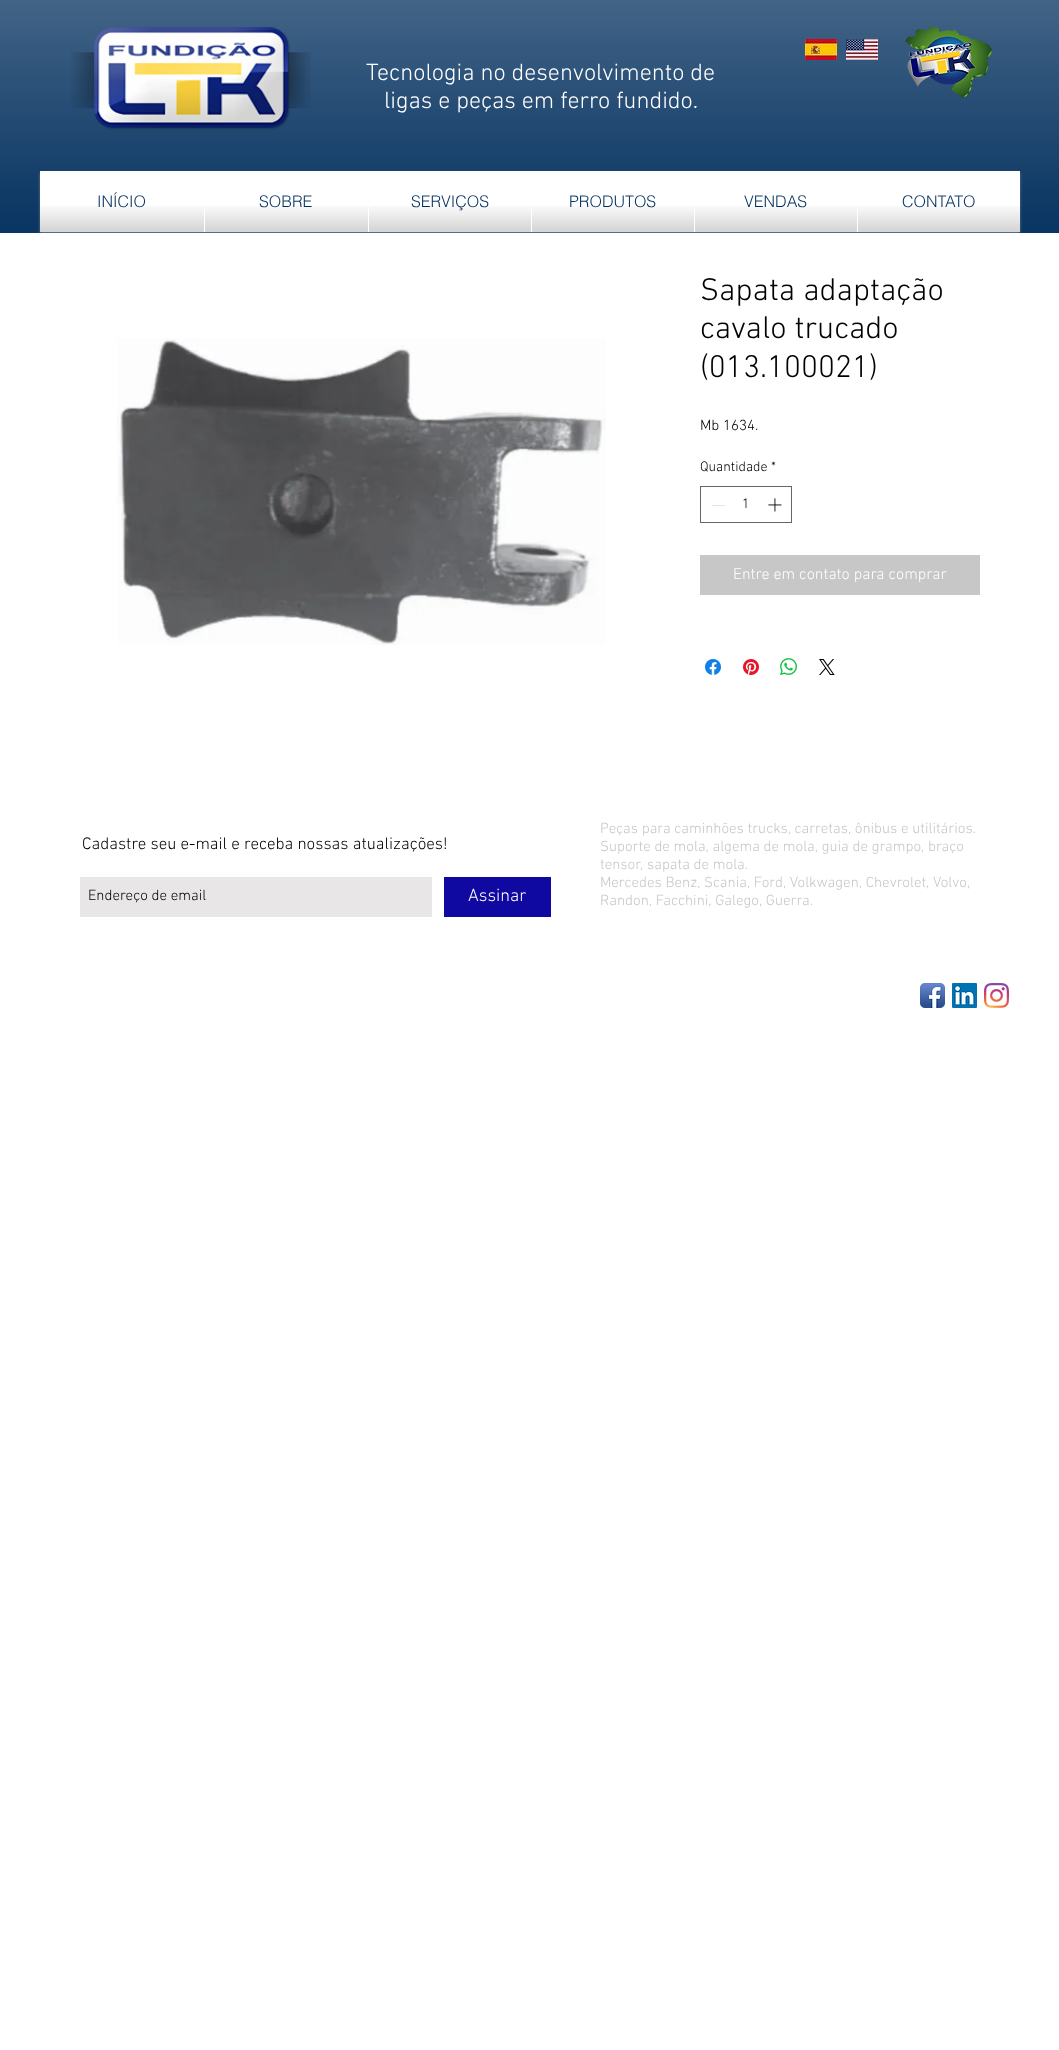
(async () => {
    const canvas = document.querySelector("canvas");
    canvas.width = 1059;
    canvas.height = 2050;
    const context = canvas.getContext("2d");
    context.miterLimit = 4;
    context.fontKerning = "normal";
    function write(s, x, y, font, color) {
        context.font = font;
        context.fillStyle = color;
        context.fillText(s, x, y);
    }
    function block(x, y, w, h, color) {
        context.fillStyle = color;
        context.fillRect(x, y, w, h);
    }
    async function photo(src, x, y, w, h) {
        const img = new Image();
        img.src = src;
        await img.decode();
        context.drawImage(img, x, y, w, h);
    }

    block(0, 0, 1059, 2050, "rgb(255, 255, 255)");
    block(0, 0, 1059, 233, "rgb(0, 46, 93)");
    await photo("media/1.png", 0, 0, 1059, 233);
    await photo("media/2.png", 71, 27, 240, 103);
    await photo("media/3.png", 805, 39, 32, 21);
    await photo("media/4.png", 846, 39, 32, 21);
    await photo("media/5.png", 905, 27, 87, 71);
    write("Tecnologia no desenvolvimento de", 366, 80, "300 24px 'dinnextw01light'", "rgb(255, 255, 255)");
    write("ligas e peças em ferro fundido.", 384, 108, "300 24px 'dinnextw01light'", "rgb(255, 255, 255)");
    context.fillStyle = "rgba(162, 158, 158, 0.6)";
    context.filter = "blur(1.5px)";
    context.beginPath();
    context.rect(40, 173, 980, 61);
    context.fill();
    context.filter = "none";
    block(40, 171, 980, 61, "rgb(255, 255, 255)");
    write("INÍCIO", 97, 207, "300 16px helvetica", "rgb(0, 46, 93)");
    await photo("media/6.png", 98, 192, 47, 12);
    await photo("media/7.png", 40, 206, 164, 26);
    write("SOBRE", 259, 207, "300 16px helvetica", "rgb(0, 46, 93)");
    await photo("media/8.png", 260, 195, 52, 9);
    await photo("media/9.png", 205, 206, 163, 26);
    write("SERVIÇOS", 411, 207, "300 16px helvetica", "rgb(0, 46, 93)");
    await photo("media/10.png", 411, 195, 77, 9);
    await photo("media/11.png", 369, 206, 162, 26);
    write("PRODUTOS", 569, 207, "300 16px helvetica", "rgb(0, 46, 93)");
    await photo("media/12.png", 570, 195, 85, 9);
    await photo("media/13.png", 532, 206, 162, 26);
    write("VENDAS", 744, 207, "300 16px helvetica", "rgb(0, 46, 93)");
    await photo("media/14.png", 744, 195, 62, 9);
    await photo("media/15.png", 695, 206, 162, 26);
    write("CONTATO", 902, 207, "300 16px helvetica", "rgb(0, 46, 93)");
    await photo("media/16.png", 902, 195, 72, 9);
    await photo("media/17.png", 858, 206, 162, 26);
    block(40, 233, 980, 4, "rgb(255, 255, 255)");
    await photo("media/18.png", 117, 338, 489, 307);
    write("Sapata adaptação", 700, 300, "300 32px 'dinnextw01light'", "rgb(0, 0, 0)");
    write("cavalo trucado", 700, 338, "300 32px 'dinnextw01light'", "rgb(0, 0, 0)");
    write("(013.100021)", 700, 377, "300 32px 'dinnextw01light'", "rgb(0, 0, 0)");
    write("Mb 1634.", 700, 430, "300 15px 'dinnextw01light'", "rgb(0, 0, 0)");
    write("Quantidade", 700, 471, "300 14px 'dinnextw01light'", "rgb(0, 0, 0)");
    write("*", 771, 471, "300 14px 'dinnextw01light'", "rgb(0, 0, 0)");
    context.strokeStyle = "rgb(102, 102, 102)";
    context.strokeRect(700.5, 486.5, 91, 36);
    block(712, 505, 13, 1, "rgb(227, 227, 227)");
    write("1", 742, 508, "300 14px 'dinnextw01light'", "rgb(0, 0, 0)");
    await photo("media/19.png", 768, 498, 14, 14);
    block(700, 555, 280, 40, "rgb(199, 199, 199)");
    write("Entre em contato para comprar", 733, 579, "300 16px 'dinnextw01light'", "rgb(255, 255, 255)");
    await photo("media/20.png", 705, 659, 16, 16);
    await photo("media/21.png", 743, 659, 16, 16);
    await photo("media/22.png", 780, 658, 17, 17);
    await photo("media/23.png", 819, 659, 16, 16);
    write("Cadastre seu e-mail e receba nossas atualizações!", 82, 849, "300 17px 'dinnextw01light'", "rgb(0, 0, 0)");
    block(80, 877, 352, 40, "rgb(232, 230, 230)");
    write("Endereço de email", 88, 900, "300 15px 'dinnextw01light'", "rgb(0, 0, 0)");
    block(444, 877, 107, 40, "rgb(15, 9, 161)");
    write("Assinar", 468, 901, "300 18px 'dinnextw01light'", "rgb(255, 255, 255)");
    write("Peças para caminhões trucks, carretas, ônibus e utilitários.", 600, 833, "300 15px 'dinnextw01light'", "rgb(199, 199, 199)");
    write("Suporte de mola, algema de mola, guia de grampo, braço", 600, 851, "300 15px 'dinnextw01light'", "rgb(199, 199, 199)");
    write("tensor, sapata de mola.", 600, 869, "300 15px 'dinnextw01light'", "rgb(199, 199, 199)");
    write("Mercedes Benz, Scania, Ford, Volkwagen, Chevrolet, Volvo,", 600, 887, "300 15px 'dinnextw01light'", "rgb(199, 199, 199)");
    write("Randon, Facchini, Galego, Guerra.", 600, 905, "300 15px 'dinnextw01light'", "rgb(199, 199, 199)");
    await photo("media/24.png", 920, 983, 25, 25);
    await photo("media/25.png", 952, 983, 25, 25);
    await photo("media/26.png", 984, 983, 25, 25);
})();
